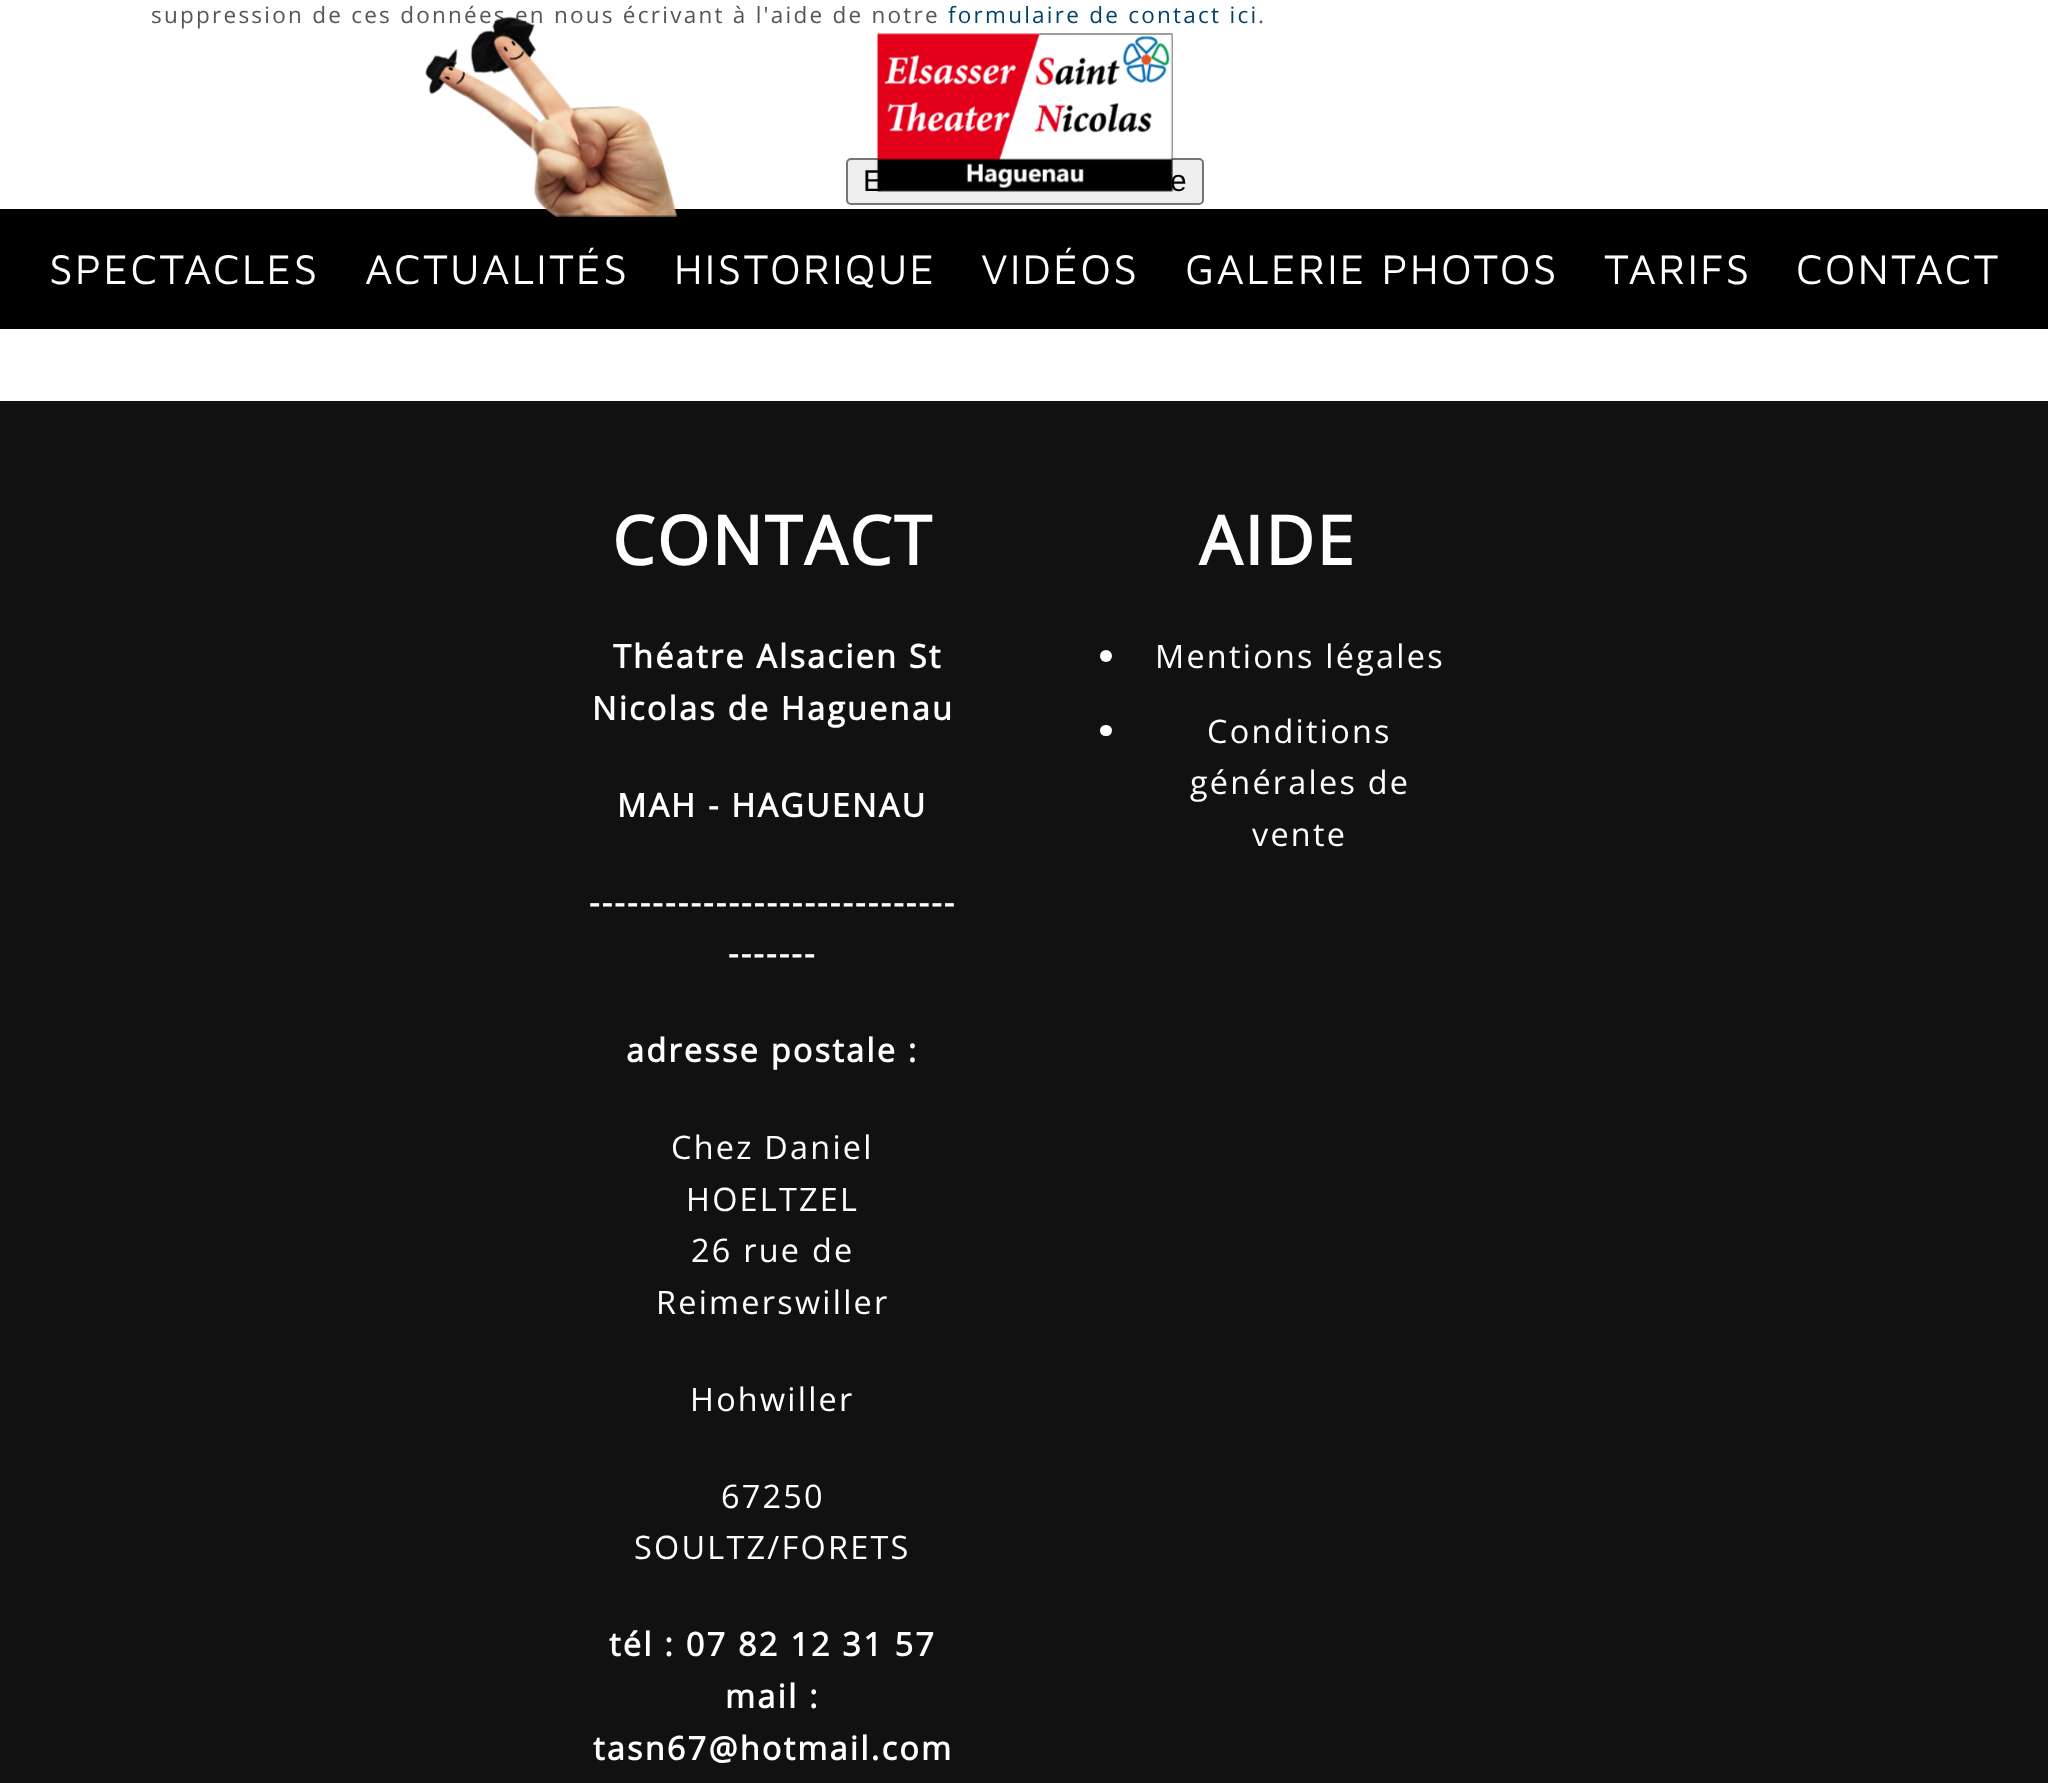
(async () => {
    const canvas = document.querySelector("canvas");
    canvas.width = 2048;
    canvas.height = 1783;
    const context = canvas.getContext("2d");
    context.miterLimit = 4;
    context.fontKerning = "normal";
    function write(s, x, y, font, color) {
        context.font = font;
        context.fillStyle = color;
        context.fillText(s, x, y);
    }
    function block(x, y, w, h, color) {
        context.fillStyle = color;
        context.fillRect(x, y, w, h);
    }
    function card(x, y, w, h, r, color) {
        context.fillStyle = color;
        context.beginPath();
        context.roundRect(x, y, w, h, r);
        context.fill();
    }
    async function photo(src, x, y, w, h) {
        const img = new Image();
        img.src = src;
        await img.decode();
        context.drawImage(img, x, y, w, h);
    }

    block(0, 0, 2048, 1783, "rgb(17, 17, 17)");
    block(0, 0, 2048, 401, "rgb(255, 255, 255)");
    context.letterSpacing = "2.25px";
    write("suppression de ces données en nous écrivant à l'aide de notre", 151, 23, "22.5px Open Sans", "rgb(85, 85, 85)");
    write("formulaire de contact ici", 948, 23, "22.5px Open Sans", "rgb(2, 66, 104)");
    write(".", 1258, 23, "22.5px Open Sans", "rgb(85, 85, 85)");
    context.fillStyle = "rgb(239, 239, 239)";
    context.beginPath();
    context.roundRect(847, 159, 356, 45, 4);
    context.fill();
    context.strokeStyle = "rgb(118, 118, 118)";
    context.lineWidth = 2;
    context.stroke();
    context.letterSpacing = "0px";
    write("E", 863, 191, "30px Liberation Sans", "rgb(0, 0, 0)");
    write("e", 1170, 191, "30px Liberation Sans", "rgb(0, 0, 0)");
    block(0, 209, 2048, 120, "rgb(0, 0, 0)");
    await photo("media/1.png", 425, 16, 253, 201);
    await photo("media/2.png", 876, 33, 297, 159);
    context.letterSpacing = "2.25px";
    write("SPECTACLES", 49, 284, "42.75px Maven Pro", "rgb(255, 255, 255)");
    write("ACTUALITÉS", 365, 284, "42.75px Maven Pro", "rgb(255, 255, 255)");
    write("HISTORIQUE", 674, 284, "42.75px Maven Pro", "rgb(255, 255, 255)");
    write("VIDÉOS", 981, 284, "42.75px Maven Pro", "rgb(255, 255, 255)");
    write("GALERIE PHOTOS", 1185, 284, "42.75px Maven Pro", "rgb(255, 255, 255)");
    write("TARIFS", 1604, 284, "42.75px Maven Pro", "rgb(255, 255, 255)");
    write("CONTACT", 1796, 284, "42.75px Maven Pro", "rgb(255, 255, 255)");
    write("CONTACT", 612, 565, "bold 67.5px Open Sans", "rgb(255, 255, 255)");
    write("Théatre Alsacien St", 613, 668, "bold 32.4px Open Sans", "rgb(255, 255, 255)");
    write("Nicolas de Haguenau", 592, 720, "bold 32.4px Open Sans", "rgb(255, 255, 255)");
    write("MAH - HAGUENAU", 617, 817, "bold 32.4px Open Sans", "rgb(255, 255, 255)");
    write("-----------------------------", 589, 914, "bold 32.4px Open Sans", "rgb(255, 255, 255)");
    write("-------", 728, 965, "bold 32.4px Open Sans", "rgb(255, 255, 255)");
    write("adresse postale :", 626, 1062, "bold 32.4px Open Sans", "rgb(255, 255, 255)");
    write("Chez Daniel", 671, 1159, "32.4px Open Sans", "rgb(255, 255, 255)");
    write("HOELTZEL", 686, 1211, "32.4px Open Sans", "rgb(255, 255, 255)");
    write("26 rue de", 691, 1262, "32.4px Open Sans", "rgb(255, 255, 255)");
    write("Reimerswiller", 656, 1314, "32.4px Open Sans", "rgb(255, 255, 255)");
    write("Hohwiller", 690, 1411, "32.4px Open Sans", "rgb(255, 255, 255)");
    write("67250", 721, 1508, "32.4px Open Sans", "rgb(255, 255, 255)");
    write("SOULTZ/FORETS", 634, 1559, "32.4px Open Sans", "rgb(255, 255, 255)");
    write("tél : 07 82 12 31 57", 609, 1656, "bold 32.4px Open Sans", "rgb(255, 255, 255)");
    write("mail :", 725, 1708, "bold 32.4px Open Sans", "rgb(255, 255, 255)");
    write("tasn67@hotmail.com", 593, 1760, "bold 32.4px Open Sans", "rgb(255, 255, 255)");
    write("AIDE", 1199, 565, "bold 67.5px Open Sans", "rgb(255, 255, 255)");
    context.beginPath();
    context.arc(1106, 656, 6, 0, Math.PI * 2);
    context.fill();
    write("Mentions légales", 1155, 668, "32.4px Open Sans", "rgb(255, 255, 255)");
    card(1100, 725, 12, 11, 5.5, "rgb(255, 255, 255)");
    write("Conditions", 1207, 743, "32.4px Open Sans", "rgb(255, 255, 255)");
    write("générales de", 1190, 794, "32.4px Open Sans", "rgb(255, 255, 255)");
    write("vente", 1252, 846, "32.4px Open Sans", "rgb(255, 255, 255)");
})();
